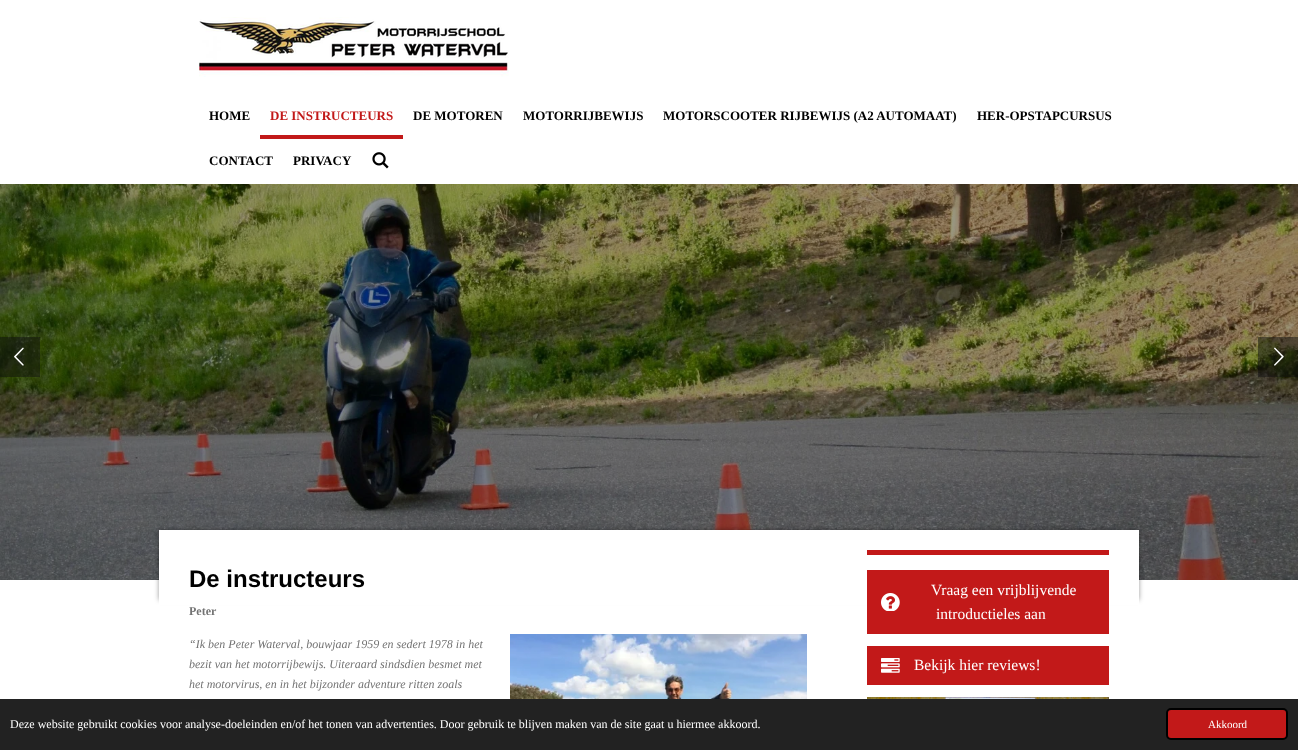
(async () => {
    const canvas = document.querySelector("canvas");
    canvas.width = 1298;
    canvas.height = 750;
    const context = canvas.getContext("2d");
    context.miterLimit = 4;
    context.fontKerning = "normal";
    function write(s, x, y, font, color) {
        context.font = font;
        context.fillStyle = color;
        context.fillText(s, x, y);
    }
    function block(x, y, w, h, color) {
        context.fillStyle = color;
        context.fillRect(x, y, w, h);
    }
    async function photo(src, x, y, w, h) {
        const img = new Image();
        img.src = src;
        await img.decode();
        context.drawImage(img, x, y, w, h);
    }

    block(0, 0, 1298, 750, "rgb(255, 255, 255)");
    await photo("media/1.png", 199, 17, 310, 60);
    write("HOME", 209, 120, "bold 13px Liberation Serif", "rgb(0, 0, 0)");
    block(260, 135, 143, 4, "rgb(194, 25, 25)");
    write("DE INSTRUCTEURS", 270, 120, "bold 13px Liberation Serif", "rgb(194, 25, 25)");
    write("DE MOTOREN", 413, 120, "bold 13px Liberation Serif", "rgb(0, 0, 0)");
    write("MOTORRIJBEWIJS", 523, 120, "bold 13px Liberation Serif", "rgb(0, 0, 0)");
    write("MOTORSCOOTER RIJBEWIJS (A2 AUTOMAAT)", 663, 120, "bold 13px Liberation Serif", "rgb(0, 0, 0)");
    write("HER-OPSTAPCURSUS", 977, 120, "bold 13px Liberation Serif", "rgb(0, 0, 0)");
    write("CONTACT", 209, 165, "bold 13px Liberation Serif", "rgb(0, 0, 0)");
    write("PRIVACY", 293, 165, "bold 13px Liberation Serif", "rgb(0, 0, 0)");
    await photo("media/2.png", 372, 152, 17, 17);
    await photo("media/3.png", 0, 184, 1298, 396);
    block(0, 337, 40, 40, "rgba(15, 15, 15, 0.5)");
    await photo("media/4.png", 14, 347, 10, 19);
    block(1258, 337, 40, 40, "rgba(15, 15, 15, 0.5)");
    await photo("media/5.png", 1274, 347, 10, 19);
    context.fillStyle = "rgba(0, 0, 0, 0.4)";
    context.filter = "blur(2.5px)";
    context.beginPath();
    context.rect(159, 530, 980, 70);
    context.fill();
    context.filter = "none";
    block(159, 530, 980, 75, "rgb(255, 255, 255)");
    write("De instructeurs", 189, 587, "bold 24px Liberation Sans", "rgb(0, 0, 0)");
    write("Peter", 189, 615, "bold 12px Liberation Serif", "rgb(115, 115, 115)");
    write("“Ik ben Peter Waterval, bouwjaar 1959 en sedert 1978 in het", 189, 648, "italic 12px Liberation Serif", "rgb(115, 115, 115)");
    write("bezit van het motorrijbewijs. Uiteraard sindsdien besmet met", 189, 668, "italic 12px Liberation Serif", "rgb(115, 115, 115)");
    write("het motorvirus, en in het bijzonder adventure ritten zoals", 189, 688, "italic 12px Liberation Serif", "rgb(115, 115, 115)");
    await photo("media/6.png", 510, 634, 297, 65);
    block(867, 550, 242, 5, "rgb(194, 25, 25)");
    block(867, 570, 242, 64, "rgb(194, 25, 25)");
    await photo("media/7.png", 881, 593, 19, 18);
    write("Vraag een vrijblijvende", 931, 595, "15.5px Liberation Serif", "rgb(255, 255, 255)");
    write("introductieles aan", 936, 619, "15.5px Liberation Serif", "rgb(255, 255, 255)");
    block(867, 646, 242, 39, "rgb(194, 25, 25)");
    await photo("media/8.png", 881, 658, 19, 15);
    write("Bekijk hier reviews!", 914, 670, "15.5px Liberation Serif", "rgb(255, 255, 255)");
    await photo("media/9.png", 867, 697, 242, 2);
    block(0, 699, 1298, 51, "rgb(34, 34, 34)");
    write("Deze website gebruikt cookies voor analyse-doeleinden en/of het tonen van advertenties. Door gebruik te blijven maken van de site gaat u hiermee akkoord.", 10, 728, "12px Liberation Serif", "rgb(255, 255, 255)");
    context.fillStyle = "rgb(194, 25, 25)";
    context.beginPath();
    context.roundRect(1167, 709, 120, 30, 4);
    context.fill();
    context.strokeStyle = "rgb(0, 0, 0)";
    context.lineWidth = 2;
    context.stroke();
    write("Akkoord", 1208, 728, "11px Liberation Serif", "rgb(255, 255, 255)");
})();
